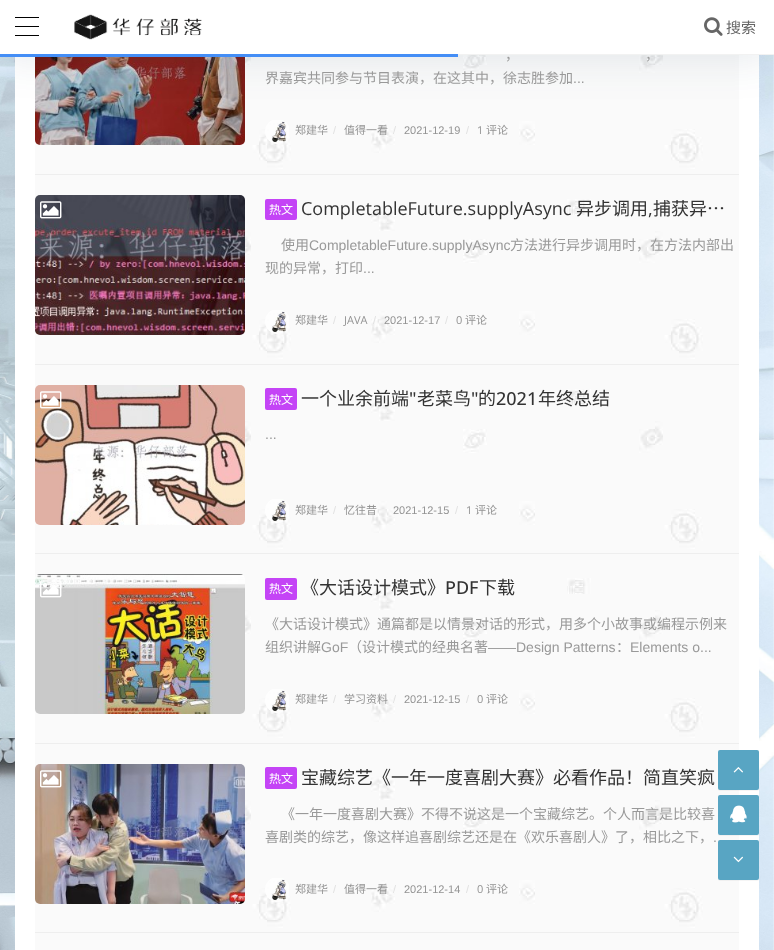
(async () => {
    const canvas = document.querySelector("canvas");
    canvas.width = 774;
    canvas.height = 950;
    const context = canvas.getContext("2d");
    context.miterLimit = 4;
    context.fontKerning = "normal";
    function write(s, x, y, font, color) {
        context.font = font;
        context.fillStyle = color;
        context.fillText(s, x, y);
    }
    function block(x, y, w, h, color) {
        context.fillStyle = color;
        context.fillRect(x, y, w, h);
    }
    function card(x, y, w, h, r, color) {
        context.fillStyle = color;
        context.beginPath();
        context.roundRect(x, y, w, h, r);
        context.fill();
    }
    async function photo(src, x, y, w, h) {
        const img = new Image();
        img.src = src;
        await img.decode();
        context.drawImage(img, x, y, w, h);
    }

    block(0, 0, 774, 950, "rgb(255, 255, 255)");
    await photo("media/20.png", 0, 55, 774, 895);
    block(15, 55, 744, 895, "rgb(255, 255, 255)");
    await photo("media/3.png", 35, 55, 704, 119);
    await photo("media/4.png", 35, 57, 210, 88);
    await photo("media/5.png", 265, 120, 24, 24);
    context.fillStyle = "rgba(17, 58, 93, 0.1)";
    context.filter = "blur(20px)";
    context.beginPath();
    context.rect(0, 5, 774, 55);
    context.fill();
    context.filter = "none";
    block(0, 0, 774, 54, "rgb(255, 255, 255)");
    block(458, 54, 316, 1, "rgb(242, 242, 242)");
    block(15, 17, 24, 1, "rgb(0, 0, 0)");
    block(15, 26, 24, 1, "rgb(0, 0, 0)");
    block(15, 35, 24, 1, "rgb(0, 0, 0)");
    await photo("media/1.png", 74, 14, 128, 26);
    await photo("media/2.png", 704, 17, 19, 19);
    write("搜索", 726, 33, "15px Noto Sans CJK SC", "rgb(102, 102, 102)");
    block(0, 54, 458, 3, "rgb(68, 142, 246)");
    block(35, 174, 704, 1, "rgb(238, 238, 238)");
    write("，", 505, 60, "14px Noto Sans CJK SC", "rgb(153, 153, 153)");
    write("，", 645, 60, "14px Noto Sans CJK SC", "rgb(153, 153, 153)");
    write("界嘉宾共同参与节目表演，在这其中，徐志胜参加", 265, 83, "14px Noto Sans CJK SC", "rgb(153, 153, 153)");
    write("...", 573, 83, "14px Liberation Sans", "rgb(153, 153, 153)");
    write("郑建华", 295, 134, "11px Noto Sans CJK SC", "rgb(147, 147, 147)");
    write("/", 333, 134, "11px Liberation Sans", "rgb(225, 225, 225)");
    write("值得一看", 344, 134, "11px Noto Sans CJK SC", "rgb(147, 147, 147)");
    write("/", 393, 134, "11px Liberation Sans", "rgb(225, 225, 225)");
    write("2021-12-19", 404, 134, "11px Liberation Sans", "rgb(147, 147, 147)");
    write("/", 466, 134, "11px Liberation Sans", "rgb(225, 225, 225)");
    write("1", 477, 134, "11px Open Sans", "rgb(147, 147, 147)");
    write("评论", 486, 134, "11px Noto Sans CJK SC", "rgb(147, 147, 147)");
    await photo("media/6.png", 35, 175, 704, 189);
    block(35, 364, 704, 1, "rgb(238, 238, 238)");
    await photo("media/7.png", 35, 195, 210, 140);
    await photo("media/8.png", 40, 201, 22, 18);
    card(265, 199, 32, 21, 2, "rgb(196, 68, 246)");
    write("热文", 269, 214, "12px Noto Sans CJK SC", "rgb(255, 255, 255)");
    write("CompletableFuture.supplyAsync", 301, 215, "18px Open Sans", "rgb(51, 51, 51)");
    write("异步调用", 576, 215, "18px Noto Sans CJK SC", "rgb(51, 51, 51)");
    write(",", 648, 215, "18px Open Sans", "rgb(51, 51, 51)");
    write("捕获异…", 653, 215, "18px Noto Sans CJK SC", "rgb(51, 51, 51)");
    write("使用", 281, 250, "14px Noto Sans CJK SC", "rgb(153, 153, 153)");
    write("CompletableFuture.supplyAsync", 309, 250, "14px Liberation Sans", "rgb(153, 153, 153)");
    write("方法进行异步调用时，在方法内部出", 510, 250, "14px Noto Sans CJK SC", "rgb(153, 153, 153)");
    write("现的异常，打印", 265, 273, "14px Noto Sans CJK SC", "rgb(153, 153, 153)");
    write("...", 363, 273, "14px Liberation Sans", "rgb(153, 153, 153)");
    await photo("media/5.png", 265, 310, 24, 24);
    write("郑建华", 295, 324, "11px Noto Sans CJK SC", "rgb(147, 147, 147)");
    write("/", 333, 324, "11px Liberation Sans", "rgb(225, 225, 225)");
    write("JAVA", 344, 324, "11px Open Sans", "rgb(147, 147, 147)");
    write("/", 373, 324, "11px Liberation Sans", "rgb(225, 225, 225)");
    write("2021-12-17", 384, 324, "11px Liberation Sans", "rgb(147, 147, 147)");
    write("/", 445, 324, "11px Liberation Sans", "rgb(225, 225, 225)");
    write("0", 456, 324, "11px Open Sans", "rgb(147, 147, 147)");
    write("评论", 465, 324, "11px Noto Sans CJK SC", "rgb(147, 147, 147)");
    await photo("media/9.png", 35, 365, 704, 188);
    block(35, 553, 704, 1, "rgb(238, 238, 238)");
    await photo("media/10.png", 35, 385, 210, 140);
    await photo("media/11.png", 40, 391, 22, 18);
    card(265, 388, 32, 22, 2, "rgb(196, 68, 246)");
    write("热文", 269, 404, "12px Noto Sans CJK SC", "rgb(255, 255, 255)");
    write("一个业余前端", 301, 405, "18px Noto Sans CJK SC", "rgb(51, 51, 51)");
    write("\"", 409, 405, "500 18px Open Sans", "rgb(51, 51, 51)");
    write("老菜鸟", 417, 405, "18px Noto Sans CJK SC", "rgb(51, 51, 51)");
    write("\"", 471, 405, "500 18px Open Sans", "rgb(51, 51, 51)");
    write("的", 478, 405, "18px Noto Sans CJK SC", "rgb(51, 51, 51)");
    write("2021", 496, 405, "500 18px Open Sans", "rgb(51, 51, 51)");
    write("年终总结", 538, 405, "18px Noto Sans CJK SC", "rgb(51, 51, 51)");
    write("...", 265, 439, "14px Liberation Sans", "rgb(153, 153, 153)");
    await photo("media/12.png", 265, 499, 24, 24);
    write("郑建华", 295, 514, "11px Noto Sans CJK SC", "rgb(147, 147, 147)");
    write("/", 333, 514, "11px Liberation Sans", "rgb(225, 225, 225)");
    write("忆往昔", 344, 514, "11px Noto Sans CJK SC", "rgb(147, 147, 147)");
    write("2021-12-15", 393, 514, "11px Liberation Sans", "rgb(147, 147, 147)");
    write("/", 455, 514, "11px Liberation Sans", "rgb(225, 225, 225)");
    write("1", 466, 514, "11px Open Sans", "rgb(147, 147, 147)");
    write("评论", 475, 514, "11px Noto Sans CJK SC", "rgb(147, 147, 147)");
    await photo("media/6.png", 35, 554, 704, 189);
    block(35, 743, 704, 1, "rgb(238, 238, 238)");
    await photo("media/13.png", 35, 574, 210, 140);
    await photo("media/14.png", 40, 580, 22, 18);
    card(265, 578, 32, 22, 2, "rgb(196, 68, 246)");
    write("热文", 269, 593, "12px Noto Sans CJK SC", "rgb(255, 255, 255)");
    write("《大话设计模式》", 301, 594, "18px Noto Sans CJK SC", "rgb(51, 51, 51)");
    write("PDF", 445, 594, "500 18px Open Sans", "rgb(51, 51, 51)");
    write("下载", 479, 594, "18px Noto Sans CJK SC", "rgb(51, 51, 51)");
    write("《大话设计模式》通篇都是以情景对话的形式，用多个小故事或编程示例来", 265, 629, "14px Noto Sans CJK SC", "rgb(153, 153, 153)");
    write("组织讲解", 265, 652, "14px Noto Sans CJK SC", "rgb(153, 153, 153)");
    write("GoF", 321, 652, "14px Liberation Sans", "rgb(153, 153, 153)");
    write("（设计模式的经典名著", 348, 652, "14px Noto Sans CJK SC", "rgb(153, 153, 153)");
    write("――Design Patterns", 488, 652, "14px Liberation Sans", "rgb(153, 153, 153)");
    write("：", 616, 652, "14px Noto Sans CJK SC", "rgb(153, 153, 153)");
    write("Elements o...", 630, 652, "14px Liberation Sans", "rgb(153, 153, 153)");
    await photo("media/5.png", 265, 689, 24, 24);
    write("郑建华", 295, 703, "11px Noto Sans CJK SC", "rgb(147, 147, 147)");
    write("/", 333, 703, "11px Liberation Sans", "rgb(225, 225, 225)");
    write("学习资料", 344, 703, "11px Noto Sans CJK SC", "rgb(147, 147, 147)");
    write("/", 393, 703, "11px Liberation Sans", "rgb(225, 225, 225)");
    write("2021-12-15", 404, 703, "11px Liberation Sans", "rgb(147, 147, 147)");
    write("/", 466, 703, "11px Liberation Sans", "rgb(225, 225, 225)");
    write("0", 477, 703, "11px Open Sans", "rgb(147, 147, 147)");
    write("评论", 486, 703, "11px Noto Sans CJK SC", "rgb(147, 147, 147)");
    await photo("media/9.png", 35, 744, 704, 188);
    block(35, 932, 704, 1, "rgb(238, 238, 238)");
    await photo("media/15.png", 35, 764, 210, 140);
    await photo("media/16.png", 40, 770, 22, 18);
    card(265, 767, 32, 22, 2, "rgb(196, 68, 246)");
    write("热文", 269, 783, "12px Noto Sans CJK SC", "rgb(255, 255, 255)");
    write("宝藏综艺《一年一度喜剧大赛》必看作品！简直笑疯", 301, 784, "18px Noto Sans CJK SC", "rgb(51, 51, 51)");
    write("《一年一度喜剧大赛》不得不说这是一个宝藏综艺。个人而言是比较喜", 281, 819, "14px Noto Sans CJK SC", "rgb(153, 153, 153)");
    write("喜剧类的综艺，像这样追喜剧综艺还是在《欢乐喜剧人》了，相比之下，", 265, 842, "14px Noto Sans CJK SC", "rgb(153, 153, 153)");
    write(".", 713, 842, "14px Liberation Sans", "rgb(153, 153, 153)");
    await photo("media/12.png", 265, 878, 24, 24);
    write("郑建华", 295, 893, "11px Noto Sans CJK SC", "rgb(147, 147, 147)");
    write("/", 333, 893, "11px Liberation Sans", "rgb(225, 225, 225)");
    write("值得一看", 344, 893, "11px Noto Sans CJK SC", "rgb(147, 147, 147)");
    write("/", 393, 893, "11px Liberation Sans", "rgb(225, 225, 225)");
    write("2021-12-14", 404, 893, "11px Liberation Sans", "rgb(147, 147, 147)");
    write("/", 466, 893, "11px Liberation Sans", "rgb(225, 225, 225)");
    write("0", 477, 893, "11px Open Sans", "rgb(147, 147, 147)");
    write("评论", 486, 893, "11px Noto Sans CJK SC", "rgb(147, 147, 147)");
    block(35, 933, 704, 17, "rgb(250, 250, 250)");
    context.fillStyle = "rgba(0, 0, 0, 0.04)";
    context.filter = "blur(0.5px)";
    context.beginPath();
    context.roundRect(718, 751, 41, 40, 2);
    context.fill();
    context.filter = "none";
    card(718, 750, 41, 40, 2, "rgb(88, 165, 195)");
    await photo("media/17.png", 733, 767, 10, 6);
    context.fillStyle = "rgba(0, 0, 0, 0.04)";
    context.filter = "blur(0.5px)";
    context.beginPath();
    context.roundRect(718, 796, 41, 40, 2);
    context.fill();
    context.filter = "none";
    card(718, 795, 41, 40, 2, "rgb(88, 165, 195)");
    await photo("media/18.png", 730, 805, 17, 18);
    context.fillStyle = "rgba(0, 0, 0, 0.04)";
    context.filter = "blur(0.5px)";
    context.beginPath();
    context.roundRect(718, 841, 41, 40, 2);
    context.fill();
    context.filter = "none";
    card(718, 840, 41, 40, 2, "rgb(88, 165, 195)");
    await photo("media/19.png", 733, 856, 10, 7);
})();
